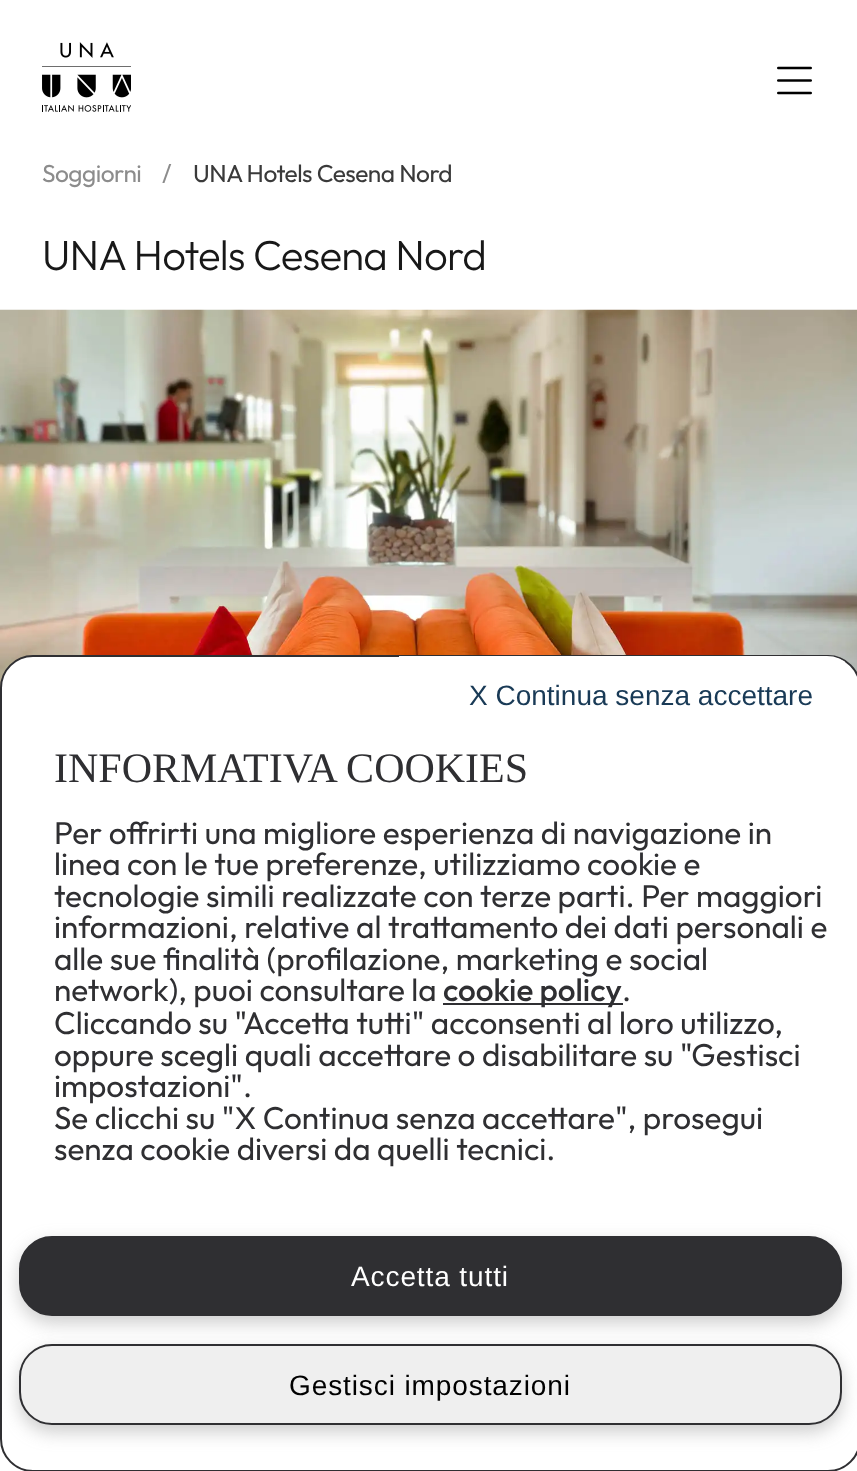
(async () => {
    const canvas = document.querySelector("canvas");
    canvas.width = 857;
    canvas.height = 1471;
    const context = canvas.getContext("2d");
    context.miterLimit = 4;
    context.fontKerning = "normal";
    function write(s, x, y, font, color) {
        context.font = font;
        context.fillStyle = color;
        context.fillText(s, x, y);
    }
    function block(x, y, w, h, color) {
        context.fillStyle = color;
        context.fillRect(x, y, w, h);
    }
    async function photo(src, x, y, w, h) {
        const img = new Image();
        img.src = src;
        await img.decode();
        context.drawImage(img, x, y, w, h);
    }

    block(0, 0, 857, 1471, "rgb(255, 255, 255)");
    await photo("media/1.png", 42, 42, 89, 70);
    await photo("media/2.png", 777, 66, 35, 29);
    context.letterSpacing = "-0.5px";
    write("Soggiorni", 42, 182, "24.5px Outfit", "rgb(140, 140, 140)");
    write("/", 162, 182, "24.5px Outfit", "rgb(140, 140, 140)");
    write("UNA Hotels Cesena Nord", 193, 182, "24.5px Outfit", "rgb(58, 58, 58)");
    context.letterSpacing = "-0.8px";
    write("UNA Hotels Cesena Nord", 42, 270, "300 42px Outfit", "rgb(24, 24, 24)");
    await photo("media/3.png", 0, 309, 857, 379);
    context.fillStyle = "rgb(255, 255, 255)";
    context.beginPath();
    context.roundRect(1, 656, 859, 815, 32);
    context.fill();
    context.strokeStyle = "rgb(47, 47, 50)";
    context.lineWidth = 2;
    context.stroke();
    context.save();
    context.beginPath();
    context.roundRect(2, 656, 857, 814, 32);
    context.clip();
    block(399, 656, 446, 56, "rgb(255, 255, 255)");
    context.restore();
    context.letterSpacing = "0px";
    write("X Continua senza accettare", 469, 705, "28px Liberation Sans", "rgb(25, 58, 86)");
    write("INFORMATIVA COOKIES", 54, 782, "42px Liberation Serif", "rgb(47, 47, 50)");
    write("Per offrirti una migliore esperienza di navigazione in", 54, 844, "31.5px Outfit", "rgb(47, 47, 50)");
    write("linea con le tue preferenze, utilizziamo cookie e", 54, 875, "31.5px Outfit", "rgb(47, 47, 50)");
    write("tecnologie simili realizzate con terze parti. Per maggiori", 54, 907, "31.5px Outfit", "rgb(47, 47, 50)");
    write("informazioni, relative al trattamento dei dati personali e", 54, 938, "31.5px Outfit", "rgb(47, 47, 50)");
    write("alle sue finalità (profilazione, marketing e social", 54, 970, "31.5px Outfit", "rgb(47, 47, 50)");
    write("network), puoi consultare la", 54, 1001, "31.5px Outfit", "rgb(47, 47, 50)");
    block(443, 1003, 180, 2, "rgb(47, 47, 50)");
    write("cookie policy", 443, 1001, "500 31.5px Outfit", "rgb(47, 47, 50)");
    write(".", 622, 1001, "31.5px Outfit", "rgb(47, 47, 50)");
    write("Cliccando su \"Accetta tutti\" acconsenti al loro utilizzo,", 54, 1034, "31.5px Outfit", "rgb(47, 47, 50)");
    write("oppure scegli quali accettare o disabilitare su \"Gestisci", 54, 1066, "31.5px Outfit", "rgb(47, 47, 50)");
    write("impostazioni\".", 54, 1097, "31.5px Outfit", "rgb(47, 47, 50)");
    write("Se clicchi su \"X Continua senza accettare\", prosegui", 54, 1129, "31.5px Outfit", "rgb(47, 47, 50)");
    write("senza cookie diversi da quelli tecnici.", 54, 1160, "31.5px Outfit", "rgb(47, 47, 50)");
    context.fillStyle = "rgba(129, 129, 129, 0.4)";
    context.filter = "blur(9px)";
    context.beginPath();
    context.roundRect(19, 1351, 823, 81, 33);
    context.fill();
    context.filter = "none";
    context.fillStyle = "rgb(239, 239, 239)";
    context.beginPath();
    context.roundRect(20, 1345, 821, 79, 32);
    context.fill();
    context.stroke();
    context.fillStyle = "rgba(129, 129, 129, 0.4)";
    context.filter = "blur(9px)";
    context.beginPath();
    context.roundRect(19, 1243, 823, 80, 33);
    context.fill();
    context.filter = "none";
    context.fillStyle = "rgb(47, 47, 50)";
    context.beginPath();
    context.roundRect(20, 1237, 821, 78, 32);
    context.fill();
    context.stroke();
    context.letterSpacing = "0.9px";
    write("Accetta tutti", 351, 1286, "28px Liberation Sans", "rgb(255, 255, 255)");
    write("Gestisci impostazioni", 289, 1395, "28px Liberation Sans", "rgb(0, 0, 0)");
})();
